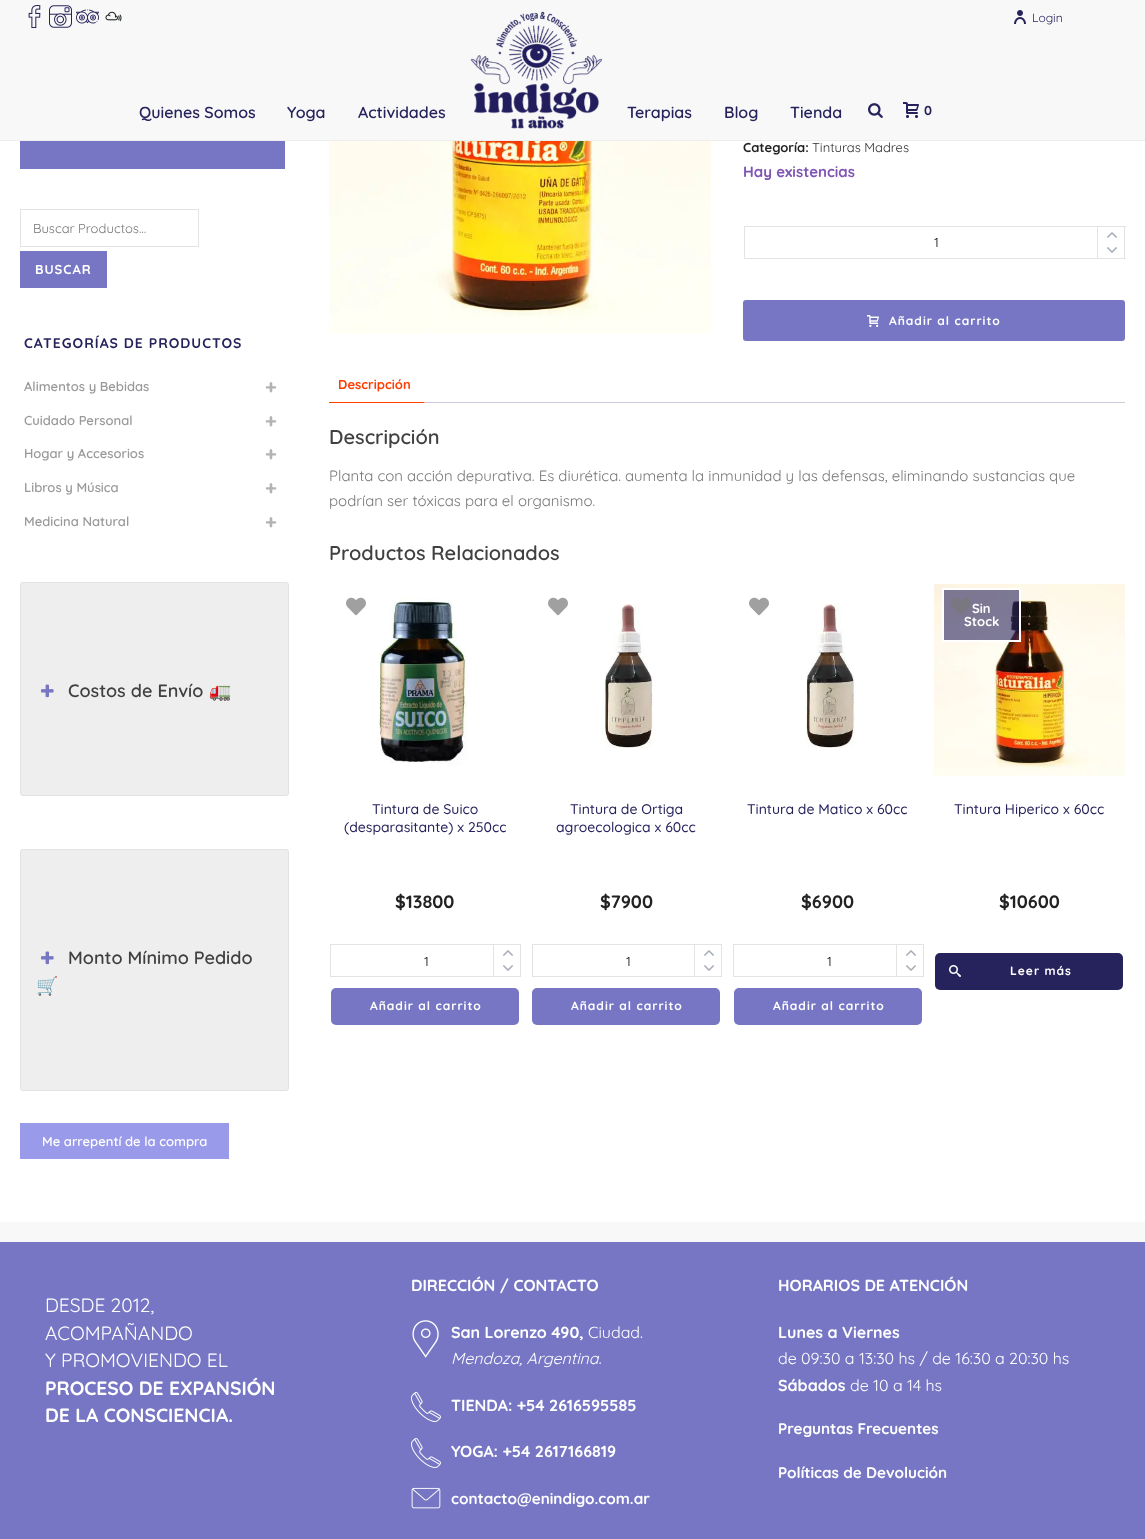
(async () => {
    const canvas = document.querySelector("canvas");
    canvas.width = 1145;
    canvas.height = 1539;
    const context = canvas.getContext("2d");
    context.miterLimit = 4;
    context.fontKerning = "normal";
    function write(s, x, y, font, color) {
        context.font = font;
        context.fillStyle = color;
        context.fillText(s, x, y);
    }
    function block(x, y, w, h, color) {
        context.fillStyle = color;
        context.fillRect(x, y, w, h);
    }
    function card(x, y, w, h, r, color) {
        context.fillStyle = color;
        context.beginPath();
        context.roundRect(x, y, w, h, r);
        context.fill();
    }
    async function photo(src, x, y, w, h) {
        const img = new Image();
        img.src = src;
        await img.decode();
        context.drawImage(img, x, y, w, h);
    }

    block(0, 0, 1145, 1539, "rgb(118, 118, 196)");
    block(0, 0, 1145, 140, "rgb(248, 248, 248)");
    await photo("media/1.png", 28, 5, 13, 23);
    await photo("media/2.png", 49, 5, 23, 23);
    await photo("media/3.png", 76, 9, 23, 15);
    await photo("media/4.png", 105, 11, 17, 11);
    await photo("media/5.png", 1014, 10, 12, 14);
    write("Login", 1032, 22, "12px Quicksand", "rgb(38, 35, 92)");
    block(0, 140, 1145, 1, "rgb(237, 237, 237)");
    write("Quienes Somos", 139, 118, "600 16px Quicksand", "rgb(38, 35, 92)");
    write("Yoga", 287, 118, "600 16px Quicksand", "rgb(38, 35, 92)");
    write("Actividades", 358, 118, "600 16px Quicksand", "rgb(38, 35, 92)");
    await photo("media/6.png", 470, 11, 133, 118);
    write("Terapias", 627, 118, "600 16px Quicksand", "rgb(38, 35, 92)");
    write("Blog", 724, 118, "600 16px Quicksand", "rgb(38, 35, 92)");
    write("Tienda", 790, 118, "600 16px Quicksand", "rgb(38, 35, 92)");
    await photo("media/7.png", 868, 103, 15, 15);
    await photo("media/8.png", 903, 102, 16, 16);
    write("0", 924, 115, "bold 13px Quicksand", "rgb(38, 35, 92)");
    block(0, 141, 1145, 1081, "rgb(255, 255, 255)");
    await photo("media/9.png", 20, 141, 265, 28);
    context.strokeStyle = "rgb(227, 227, 227)";
    context.strokeRect(20.5, 209.5, 178, 37);
    write("Buscar Productos…", 33, 233, "13px Quicksand", "rgb(119, 119, 119)");
    block(20, 251, 87, 37, "rgb(118, 118, 196)");
    context.letterSpacing = "1px";
    write("BUSCAR", 35, 274, "bold 13px Quicksand", "rgb(255, 255, 255)");
    write("CATEGORÍAS DE PRODUCTOS", 24, 348, "bold 14px Quicksand", "rgb(38, 35, 92)");
    context.letterSpacing = "0px";
    write("Alimentos y Bebidas", 24, 391, "600 13px Quicksand", "rgb(153, 153, 153)");
    write("+", 265, 394, "bold 20px Quicksand", "rgb(179, 179, 179)");
    write("Cuidado Personal", 24, 425, "600 13px Quicksand", "rgb(153, 153, 153)");
    write("+", 265, 428, "bold 20px Quicksand", "rgb(179, 179, 179)");
    write("Hogar y Accesorios", 24, 458, "600 13px Quicksand", "rgb(153, 153, 153)");
    write("+", 265, 461, "bold 20px Quicksand", "rgb(179, 179, 179)");
    write("Libros y Música", 24, 492, "600 13px Quicksand", "rgb(153, 153, 153)");
    write("+", 265, 495, "bold 20px Quicksand", "rgb(179, 179, 179)");
    write("Medicina Natural", 24, 526, "600 13px Quicksand", "rgb(153, 153, 153)");
    write("+", 265, 529, "bold 20px Quicksand", "rgb(179, 179, 179)");
    context.fillStyle = "rgb(238, 238, 238)";
    context.beginPath();
    context.roundRect(20.5, 582.5, 268, 213, 2.5);
    context.fill();
    context.strokeStyle = "rgb(226, 226, 226)";
    context.stroke();
    await photo("media/10.png", 41, 684, 13, 14);
    write("Costos de Envío", 68, 697, "600 18px Quicksand", "rgb(64, 64, 64)");
    write("🚛", 209, 697, "bold 18px Noto Color Emoji", "rgb(64, 64, 64)");
    context.fillStyle = "rgb(238, 238, 238)";
    context.beginPath();
    context.roundRect(20.5, 849.5, 268, 241, 2.5);
    context.fill();
    context.stroke();
    await photo("media/10.png", 41, 951, 13, 14);
    write("Monto Mínimo Pedido", 68, 964, "600 18px Quicksand", "rgb(64, 64, 64)");
    write("🛒", 36, 992, "bold 18px Noto Color Emoji", "rgb(64, 64, 64)");
    block(20, 1123, 209, 36, "rgb(154, 154, 234)");
    write("Me arrepentí de la compra", 42, 1146, "600 13px Quicksand", "rgb(255, 255, 255)");
    await photo("media/11.png", 329, 141, 382, 193);
    write("Categoría:", 743, 152, "bold 13px Quicksand", "rgb(34, 34, 34)");
    write("Tinturas Madres", 812, 152, "13px Quicksand", "rgb(46, 46, 46)");
    write("Hay existencias", 743, 177, "bold 15px Quicksand", "rgb(127, 84, 179)");
    context.save();
    context.beginPath();
    context.rect(744, 226, 382, 33);
    context.clip();
    context.strokeStyle = "rgb(227, 227, 227)";
    context.strokeRect(744.5, 226.5, 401, 32);
    context.restore();
    write("1", 934, 247, "13px Quicksand", "rgb(0, 0, 0)");
    block(1124, 227, 1, 31, "rgb(227, 227, 227)");
    block(1097, 227, 1, 31, "rgb(227, 227, 227)");
    await photo("media/12.png", 1107, 232, 10, 6);
    await photo("media/13.png", 1107, 247, 10, 6);
    card(743, 300, 382, 41, 3, "rgb(118, 118, 196)");
    await photo("media/14.png", 867, 315, 12, 12);
    context.letterSpacing = "1px";
    write("Añadir al carrito", 889, 325, "bold 12px Quicksand", "rgb(255, 255, 255)");
    context.save();
    context.beginPath();
    context.rect(329, 367, 796, 36);
    context.clip();
    context.fillStyle = "rgb(255, 61, 0)";
    context.beginPath();
    context.moveTo(425, 403);
    context.lineTo(324, 403);
    context.lineTo(325, 402);
    context.lineTo(424, 402);
    context.closePath();
    context.fill();
    context.restore();
    context.letterSpacing = "0px";
    write("Descripción", 338, 389, "bold 13px Quicksand", "rgb(255, 61, 0)");
    block(425, 402, 700, 1, "rgb(207, 200, 216)");
    write("Descripción", 329, 444, "600 20px Quicksand", "rgb(64, 64, 64)");
    write("Planta con acción depurativa. Es diurética. aumenta la inmunidad y las defensas, eliminando sustancias que", 329, 481, "15px Quicksand", "rgb(119, 119, 119)");
    write("podrían ser tóxicas para el organismo.", 329, 506, "15px Quicksand", "rgb(119, 119, 119)");
    write("Productos Relacionados", 329, 560, "600 20px Quicksand", "rgb(64, 64, 64)");
    await photo("media/15.png", 346, 597, 20, 19);
    await photo("media/16.png", 378, 597, 90, 169);
    write("Tintura de Suico", 372, 814, "500 14px Quicksand", "rgb(38, 35, 92)");
    write("(desparasitante) x 250cc", 344, 832, "500 14px Quicksand", "rgb(38, 35, 92)");
    write("$13800", 395, 908, "bold 18px Quicksand", "rgb(34, 34, 34)");
    context.save();
    context.beginPath();
    context.rect(330, 944, 191, 33);
    context.clip();
    context.strokeStyle = "rgb(227, 227, 227)";
    context.strokeRect(330.5, 944.5, 218, 32);
    context.restore();
    write("1", 424, 966, "13px Quicksand", "rgb(0, 0, 0)");
    block(520, 945, 1, 31, "rgb(227, 227, 227)");
    block(493, 945, 1, 31, "rgb(227, 227, 227)");
    await photo("media/12.png", 503, 950, 10, 6);
    await photo("media/13.png", 503, 965, 10, 6);
    card(331, 988, 188, 37, 5, "rgb(118, 118, 196)");
    context.letterSpacing = "1px";
    write("Añadir al carrito", 370, 1010, "bold 12px Quicksand", "rgb(255, 255, 255)");
    await photo("media/15.png", 548, 597, 20, 19);
    await photo("media/17.png", 602, 603, 52, 145);
    context.letterSpacing = "0px";
    write("Tintura de Ortiga", 570, 814, "500 14px Quicksand", "rgb(38, 35, 92)");
    write("agroecologica x 60cc", 556, 832, "500 14px Quicksand", "rgb(38, 35, 92)");
    write("$7900", 600, 908, "bold 18px Quicksand", "rgb(34, 34, 34)");
    context.save();
    context.beginPath();
    context.rect(532, 944, 190, 33);
    context.clip();
    context.strokeStyle = "rgb(227, 227, 227)";
    context.strokeRect(532.5, 944.5, 217, 32);
    context.restore();
    write("1", 626, 966, "13px Quicksand", "rgb(0, 0, 0)");
    block(721, 945, 1, 31, "rgb(227, 227, 227)");
    block(694, 945, 1, 31, "rgb(227, 227, 227)");
    await photo("media/12.png", 704, 950, 10, 6);
    await photo("media/13.png", 704, 965, 10, 6);
    card(532, 988, 188, 37, 5, "rgb(118, 118, 196)");
    context.letterSpacing = "1px";
    write("Añadir al carrito", 571, 1010, "bold 12px Quicksand", "rgb(255, 255, 255)");
    await photo("media/15.png", 749, 597, 20, 19);
    await photo("media/18.png", 804, 603, 51, 145);
    context.letterSpacing = "0px";
    write("Tintura de Matico x 60cc", 747, 814, "500 14px Quicksand", "rgb(38, 35, 92)");
    write("$6900", 801, 908, "bold 18px Quicksand", "rgb(34, 34, 34)");
    context.save();
    context.beginPath();
    context.rect(733, 944, 191, 33);
    context.clip();
    context.strokeStyle = "rgb(227, 227, 227)";
    context.strokeRect(733.5, 944.5, 218, 32);
    context.restore();
    write("1", 827, 966, "13px Quicksand", "rgb(0, 0, 0)");
    block(923, 945, 1, 31, "rgb(227, 227, 227)");
    block(896, 945, 1, 31, "rgb(227, 227, 227)");
    await photo("media/12.png", 906, 950, 10, 6);
    await photo("media/13.png", 906, 965, 10, 6);
    card(734, 988, 188, 37, 5, "rgb(118, 118, 196)");
    context.letterSpacing = "1px";
    write("Añadir al carrito", 773, 1010, "bold 12px Quicksand", "rgb(255, 255, 255)");
    await photo("media/20.png", 934, 584, 191, 192);
    context.fillStyle = "rgba(38, 35, 92, 0.6)";
    context.beginPath();
    context.rect(943, 589, 77, 52);
    context.fill();
    context.strokeStyle = "rgb(255, 255, 255)";
    context.lineWidth = 2;
    context.stroke();
    await photo("media/19.png", 951, 597, 20, 18);
    context.letterSpacing = "0px";
    write("Sin", 972, 613, "bold 13px Quicksand", "rgb(255, 255, 255)");
    write("Stock", 964, 626, "bold 13px Quicksand", "rgb(255, 255, 255)");
    write("Tintura Hiperico x 60cc", 954, 814, "500 14px Quicksand", "rgb(38, 35, 92)");
    write("$10600", 999, 908, "bold 18px Quicksand", "rgb(34, 34, 34)");
    card(935, 953, 188, 37, 5, "rgb(38, 35, 92)");
    await photo("media/21.png", 949, 965, 12, 12);
    context.letterSpacing = "1px";
    write("Leer más", 1010, 975, "bold 12px Quicksand", "rgb(255, 255, 255)");
    block(0, 1222, 1145, 20, "rgb(248, 248, 248)");
    context.letterSpacing = "0px";
    write("DESDE 2012,", 45, 1312, "19.25px Quicksand", "rgb(255, 255, 255)");
    write("ACOMPAÑANDO", 45, 1340, "19.25px Quicksand", "rgb(255, 255, 255)");
    write("Y PROMOVIENDO EL", 45, 1367, "19.25px Quicksand", "rgb(255, 255, 255)");
    write("PROCESO DE EXPANSIÓN", 45, 1395, "bold 19.25px Quicksand", "rgb(255, 255, 255)");
    write("DE LA CONSCIENCIA.", 45, 1422, "bold 19.25px Quicksand", "rgb(255, 255, 255)");
    write("DIRECCIÓN / CONTACTO", 411, 1291, "bold 16px Quicksand", "rgb(255, 255, 255)");
    await photo("media/22.png", 412, 1320, 27, 38);
    write("San Lorenzo 490,", 451, 1338, "bold 16px Quicksand", "rgb(255, 255, 255)");
    write("Ciudad.", 588, 1338, "16px Quicksand", "rgb(255, 255, 255)");
    write("Mendoza, Argentina.", 451, 1364, "italic 16px Quicksand", "rgb(255, 255, 255)");
    await photo("media/23.png", 411, 1392, 30, 30);
    write("TIENDA: +54 2616595585", 451, 1411, "bold 16px Quicksand", "rgb(255, 255, 255)");
    await photo("media/23.png", 411, 1438, 30, 30);
    write("YOGA: +54 2617166819", 451, 1457, "bold 16px Quicksand", "rgb(255, 255, 255)");
    await photo("media/24.png", 411, 1487, 30, 22);
    write("contacto@enindigo.com.ar", 451, 1504, "bold 15.25px Quicksand", "rgb(255, 255, 255)");
    write("HORARIOS DE ATENCIÓN", 778, 1291, "bold 16px Quicksand", "rgb(255, 255, 255)");
    write("Lunes a Viernes", 778, 1338, "bold 16px Quicksand", "rgb(255, 255, 255)");
    write("de 09:30 a 13:30 hs / de 16:30 a 20:30 hs", 778, 1364, "16px Quicksand", "rgb(255, 255, 255)");
    write("Sábados", 778, 1391, "bold 16px Quicksand", "rgb(255, 255, 255)");
    write("de 10 a 14 hs", 850, 1391, "16px Quicksand", "rgb(255, 255, 255)");
    write("Preguntas Frecuentes", 778, 1434, "bold 15.25px Quicksand", "rgb(255, 255, 255)");
    write("Políticas de Devolución", 778, 1478, "bold 15.25px Quicksand", "rgb(255, 255, 255)");
})();
